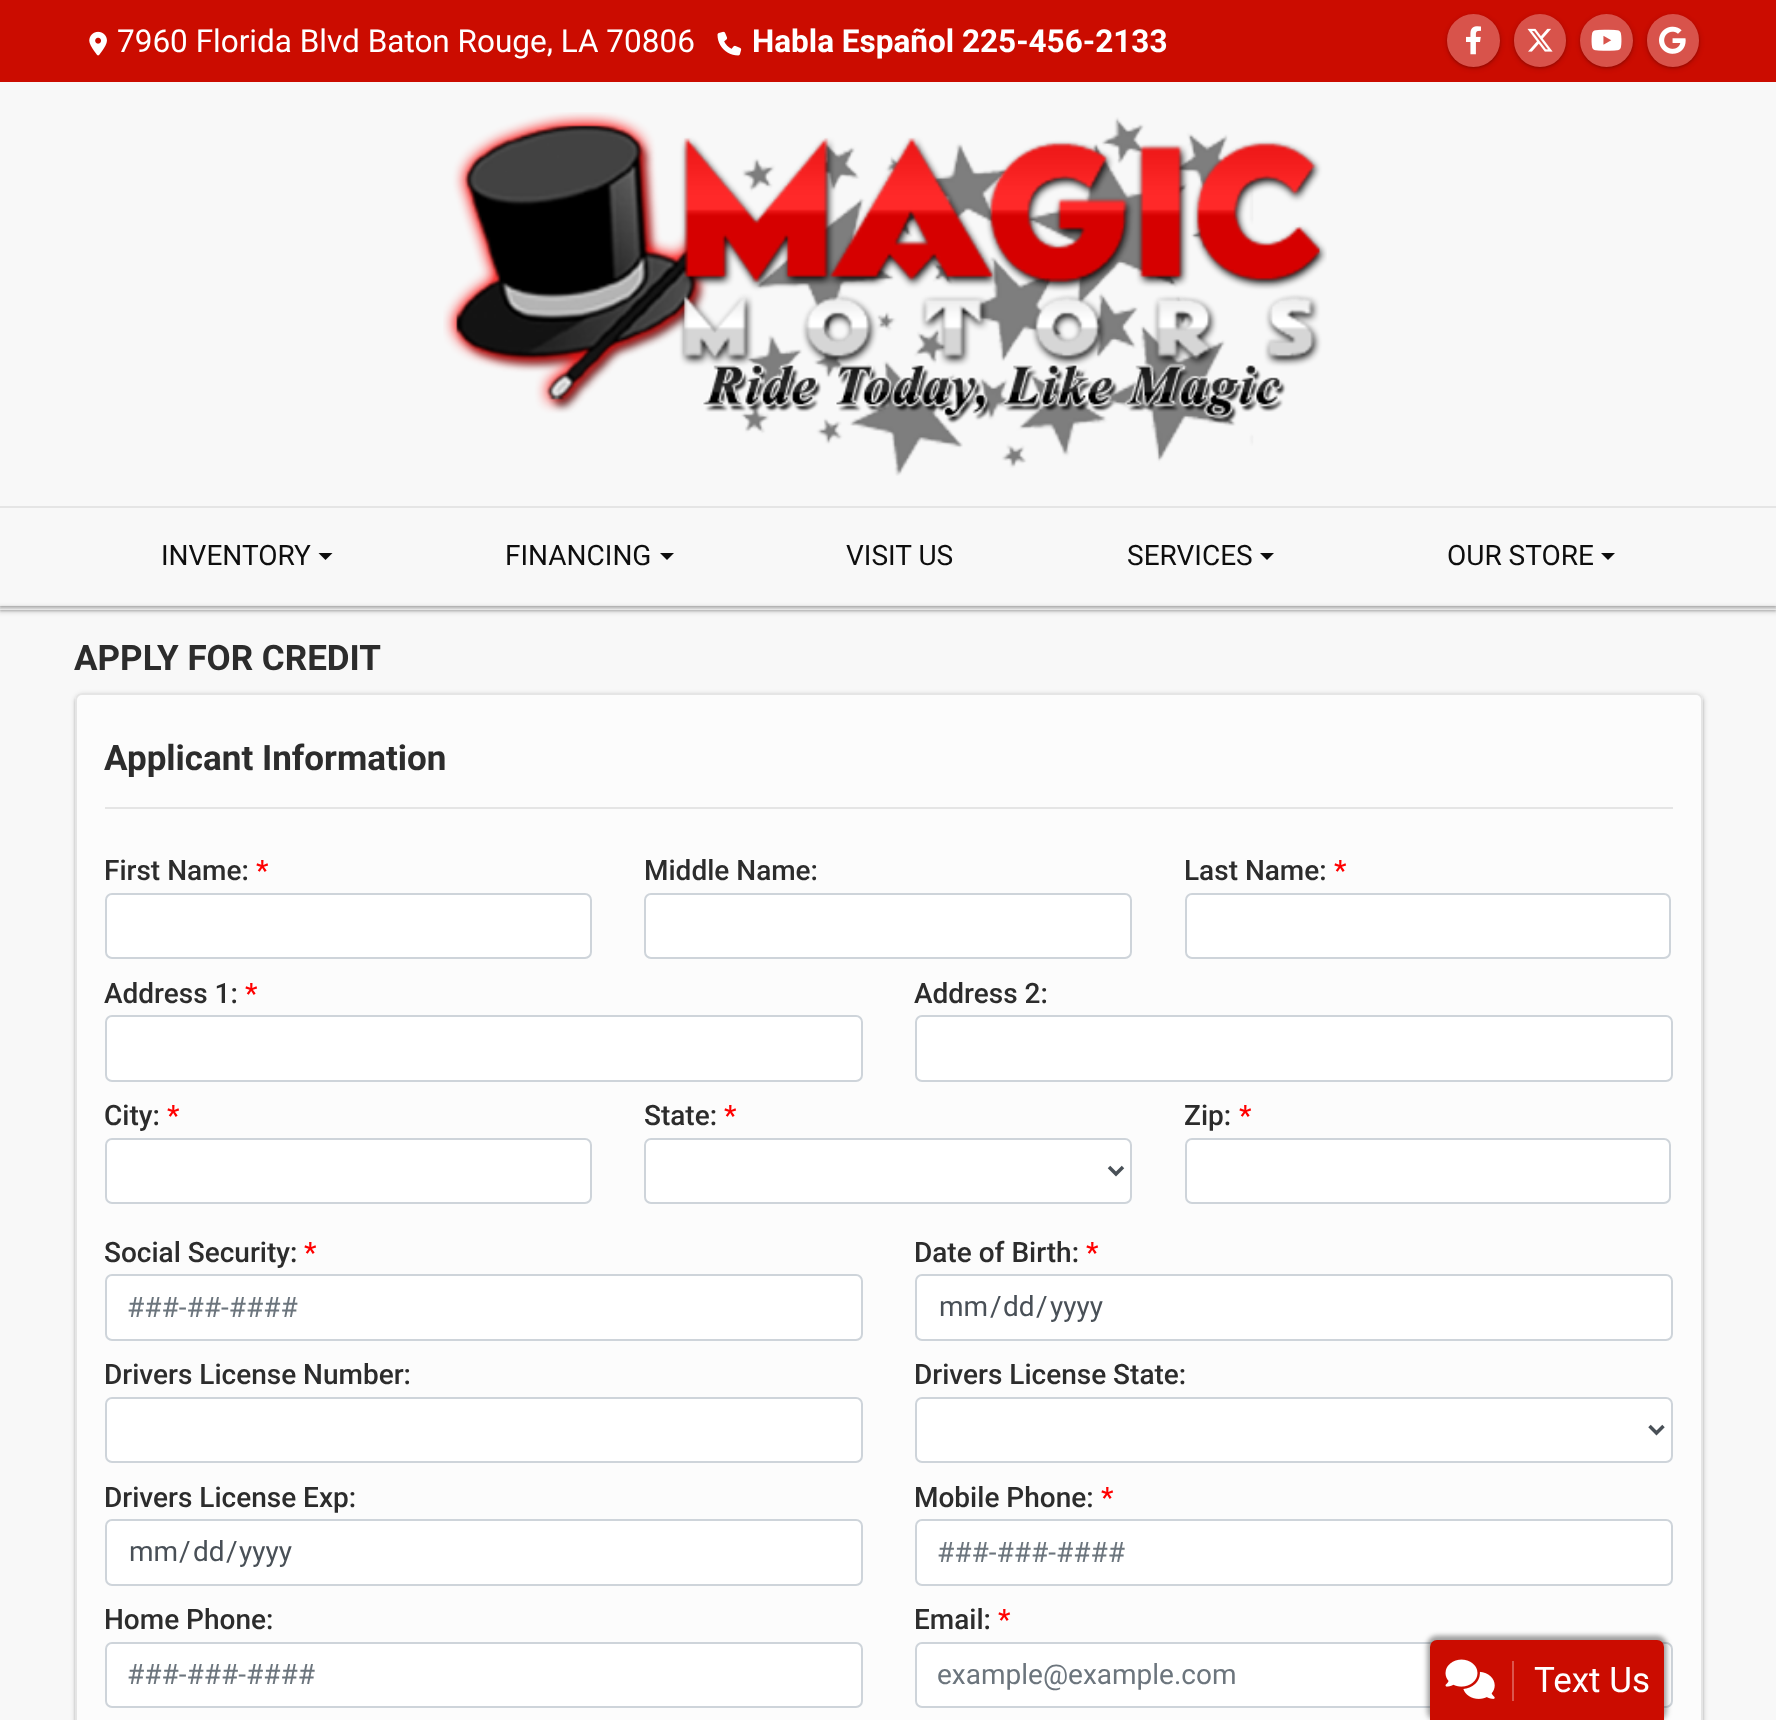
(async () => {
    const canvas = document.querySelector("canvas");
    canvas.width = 1776;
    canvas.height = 1720;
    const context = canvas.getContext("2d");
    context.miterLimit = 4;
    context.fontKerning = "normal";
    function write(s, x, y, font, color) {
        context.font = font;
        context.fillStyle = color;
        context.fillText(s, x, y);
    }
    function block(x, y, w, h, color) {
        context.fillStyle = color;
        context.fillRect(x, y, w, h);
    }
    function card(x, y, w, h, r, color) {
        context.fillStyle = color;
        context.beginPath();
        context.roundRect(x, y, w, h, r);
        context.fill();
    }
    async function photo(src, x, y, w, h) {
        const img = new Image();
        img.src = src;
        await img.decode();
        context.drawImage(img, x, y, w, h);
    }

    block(0, 0, 1776, 1720, "rgb(248, 248, 248)");
    context.fillStyle = "rgba(0, 0, 0, 0.2)";
    context.filter = "blur(1px)";
    context.beginPath();
    context.rect(0, 607, 1776, 4);
    context.fill();
    context.filter = "none";
    context.fillStyle = "rgba(0, 0, 0, 0.1)";
    context.filter = "blur(2px)";
    context.beginPath();
    context.rect(-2, 606, 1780, 7);
    context.fill();
    context.filter = "none";
    block(0, 609, 1776, 1, "rgb(240, 240, 240)");
    block(0, 606, 1776, 3, "rgb(229, 229, 229)");
    context.save();
    context.beginPath();
    context.moveTo(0, 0);
    context.lineTo(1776, 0);
    context.lineTo(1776, 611);
    context.lineTo(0, 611);
    context.closePath();
    context.moveTo(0, 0);
    context.lineTo(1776, 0);
    context.lineTo(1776, 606);
    context.lineTo(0, 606);
    context.closePath();
    context.clip("evenodd");
    context.fillStyle = "rgba(0, 0, 0, 0.2)";
    context.filter = "blur(1px)";
    context.beginPath();
    context.rect(0, 2, 1776, 605);
    context.fill();
    context.filter = "none";
    context.restore();
    context.save();
    context.beginPath();
    context.moveTo(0, 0);
    context.lineTo(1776, 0);
    context.lineTo(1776, 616);
    context.lineTo(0, 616);
    context.closePath();
    context.moveTo(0, 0);
    context.lineTo(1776, 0);
    context.lineTo(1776, 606);
    context.lineTo(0, 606);
    context.closePath();
    context.clip("evenodd");
    context.fillStyle = "rgba(0, 0, 0, 0.1)";
    context.filter = "blur(2px)";
    context.beginPath();
    context.rect(-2, 0, 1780, 609);
    context.fill();
    context.filter = "none";
    context.restore();
    block(0, 0, 1776, 82, "rgb(203, 12, 0)");
    await photo("media/1.png", 89, 31, 18, 25);
    write("7960 Florida Blvd Baton Rouge, LA 70806", 117, 52, "31.5px Roboto", "rgb(255, 255, 255)");
    await photo("media/2.png", 717, 31, 25, 25);
    write("Habla Español 225-456-2133", 752, 52, "bold 31.5px Roboto", "rgb(255, 255, 255)");
    context.save();
    context.beginPath();
    context.moveTo(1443, 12);
    context.lineTo(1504, 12);
    context.lineTo(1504, 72);
    context.lineTo(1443, 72);
    context.closePath();
    context.moveTo(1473.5, 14);
    context.bezierCurveTo(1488, 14, 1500, 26, 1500, 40.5);
    context.bezierCurveTo(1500, 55, 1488, 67, 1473.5, 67);
    context.bezierCurveTo(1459, 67, 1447, 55, 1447, 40.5);
    context.bezierCurveTo(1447, 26, 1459, 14, 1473.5, 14);
    context.closePath();
    context.clip("evenodd");
    context.fillStyle = "rgba(0, 0, 0, 0.2)";
    context.filter = "blur(1px)";
    context.beginPath();
    context.roundRect(1447, 16, 53, 52, 26);
    context.fill();
    context.filter = "none";
    context.restore();
    context.save();
    context.beginPath();
    context.moveTo(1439, 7);
    context.lineTo(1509, 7);
    context.lineTo(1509, 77);
    context.lineTo(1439, 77);
    context.closePath();
    context.moveTo(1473.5, 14);
    context.bezierCurveTo(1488, 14, 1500, 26, 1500, 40.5);
    context.bezierCurveTo(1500, 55, 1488, 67, 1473.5, 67);
    context.bezierCurveTo(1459, 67, 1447, 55, 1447, 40.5);
    context.bezierCurveTo(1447, 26, 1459, 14, 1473.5, 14);
    context.closePath();
    context.clip("evenodd");
    context.fillStyle = "rgba(0, 0, 0, 0.1)";
    context.filter = "blur(2px)";
    context.beginPath();
    context.roundRect(1446, 14, 56, 56, 28);
    context.fill();
    context.filter = "none";
    context.restore();
    context.fillStyle = "rgba(248, 248, 248, 0.3)";
    context.beginPath();
    context.arc(1473.5, 40.5, 26.5, 0, Math.PI * 2);
    context.fill();
    await photo("media/3.png", 1466, 26, 15, 29);
    context.save();
    context.beginPath();
    context.moveTo(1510, 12);
    context.lineTo(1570, 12);
    context.lineTo(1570, 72);
    context.lineTo(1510, 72);
    context.closePath();
    context.moveTo(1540, 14);
    context.bezierCurveTo(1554.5, 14, 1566, 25.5, 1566, 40);
    context.lineTo(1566, 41);
    context.bezierCurveTo(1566, 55.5, 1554.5, 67, 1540, 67);
    context.bezierCurveTo(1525.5, 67, 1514, 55.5, 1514, 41);
    context.lineTo(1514, 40);
    context.bezierCurveTo(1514, 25.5, 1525.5, 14, 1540, 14);
    context.closePath();
    context.clip("evenodd");
    context.fillStyle = "rgba(0, 0, 0, 0.2)";
    context.filter = "blur(1px)";
    context.beginPath();
    context.roundRect(1514, 16, 52, 52, 26);
    context.fill();
    context.filter = "none";
    context.restore();
    context.save();
    context.beginPath();
    context.moveTo(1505, 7);
    context.lineTo(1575, 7);
    context.lineTo(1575, 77);
    context.lineTo(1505, 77);
    context.closePath();
    context.moveTo(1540, 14);
    context.bezierCurveTo(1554.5, 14, 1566, 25.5, 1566, 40);
    context.lineTo(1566, 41);
    context.bezierCurveTo(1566, 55.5, 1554.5, 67, 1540, 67);
    context.bezierCurveTo(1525.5, 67, 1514, 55.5, 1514, 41);
    context.lineTo(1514, 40);
    context.bezierCurveTo(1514, 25.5, 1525.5, 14, 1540, 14);
    context.closePath();
    context.clip("evenodd");
    context.fillStyle = "rgba(0, 0, 0, 0.1)";
    context.filter = "blur(2px)";
    context.beginPath();
    context.roundRect(1512, 14, 56, 56, 28);
    context.fill();
    context.filter = "none";
    context.restore();
    card(1514, 14, 52, 53, 26, "rgba(248, 248, 248, 0.3)");
    await photo("media/4.png", 1527, 28, 26, 24);
    context.save();
    context.beginPath();
    context.moveTo(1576, 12);
    context.lineTo(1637, 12);
    context.lineTo(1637, 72);
    context.lineTo(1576, 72);
    context.closePath();
    context.moveTo(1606.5, 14);
    context.bezierCurveTo(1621, 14, 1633, 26, 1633, 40.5);
    context.bezierCurveTo(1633, 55, 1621, 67, 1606.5, 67);
    context.bezierCurveTo(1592, 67, 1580, 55, 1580, 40.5);
    context.bezierCurveTo(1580, 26, 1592, 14, 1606.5, 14);
    context.closePath();
    context.clip("evenodd");
    context.fillStyle = "rgba(0, 0, 0, 0.2)";
    context.filter = "blur(1px)";
    context.beginPath();
    context.roundRect(1580, 16, 53, 52, 26);
    context.fill();
    context.filter = "none";
    context.restore();
    context.save();
    context.beginPath();
    context.moveTo(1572, 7);
    context.lineTo(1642, 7);
    context.lineTo(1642, 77);
    context.lineTo(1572, 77);
    context.closePath();
    context.moveTo(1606.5, 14);
    context.bezierCurveTo(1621, 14, 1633, 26, 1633, 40.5);
    context.bezierCurveTo(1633, 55, 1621, 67, 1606.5, 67);
    context.bezierCurveTo(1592, 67, 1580, 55, 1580, 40.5);
    context.bezierCurveTo(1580, 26, 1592, 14, 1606.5, 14);
    context.closePath();
    context.clip("evenodd");
    context.fillStyle = "rgba(0, 0, 0, 0.1)";
    context.filter = "blur(2px)";
    context.beginPath();
    context.roundRect(1579, 14, 56, 56, 28);
    context.fill();
    context.filter = "none";
    context.restore();
    context.beginPath();
    context.arc(1606.5, 40.5, 26.5, 0, Math.PI * 2);
    context.fill();
    await photo("media/5.png", 1591, 29, 31, 22);
    context.save();
    context.beginPath();
    context.moveTo(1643, 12);
    context.lineTo(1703, 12);
    context.lineTo(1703, 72);
    context.lineTo(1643, 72);
    context.closePath();
    context.moveTo(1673, 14);
    context.bezierCurveTo(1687.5, 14, 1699, 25.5, 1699, 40);
    context.lineTo(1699, 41);
    context.bezierCurveTo(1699, 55.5, 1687.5, 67, 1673, 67);
    context.bezierCurveTo(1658.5, 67, 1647, 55.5, 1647, 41);
    context.lineTo(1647, 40);
    context.bezierCurveTo(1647, 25.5, 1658.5, 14, 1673, 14);
    context.closePath();
    context.clip("evenodd");
    context.fillStyle = "rgba(0, 0, 0, 0.2)";
    context.filter = "blur(1px)";
    context.beginPath();
    context.roundRect(1647, 16, 52, 52, 26);
    context.fill();
    context.filter = "none";
    context.restore();
    context.save();
    context.beginPath();
    context.moveTo(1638, 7);
    context.lineTo(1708, 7);
    context.lineTo(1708, 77);
    context.lineTo(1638, 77);
    context.closePath();
    context.moveTo(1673, 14);
    context.bezierCurveTo(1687.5, 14, 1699, 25.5, 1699, 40);
    context.lineTo(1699, 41);
    context.bezierCurveTo(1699, 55.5, 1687.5, 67, 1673, 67);
    context.bezierCurveTo(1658.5, 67, 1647, 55.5, 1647, 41);
    context.lineTo(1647, 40);
    context.bezierCurveTo(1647, 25.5, 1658.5, 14, 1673, 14);
    context.closePath();
    context.clip("evenodd");
    context.fillStyle = "rgba(0, 0, 0, 0.1)";
    context.filter = "blur(2px)";
    context.beginPath();
    context.roundRect(1645, 14, 56, 56, 28);
    context.fill();
    context.filter = "none";
    context.restore();
    card(1647, 14, 52, 53, 26, "rgba(248, 248, 248, 0.3)");
    await photo("media/6.png", 1659, 26, 27, 28);
    await photo("media/7.png", 443, 112, 884, 364);
    block(0, 506, 1776, 2, "rgb(229, 229, 229)");
    write("INVENTORY", 161, 565, "28px Roboto", "rgb(14, 14, 14)");
    context.beginPath();
    context.moveTo(318.5, 553);
    context.lineTo(332.5, 553);
    context.lineTo(325.5, 560);
    context.closePath();
    context.fill();
    write("FINANCING", 505, 565, "28px Roboto", "rgb(14, 14, 14)");
    context.beginPath();
    context.moveTo(660, 553);
    context.lineTo(674, 553);
    context.lineTo(667, 560);
    context.closePath();
    context.fill();
    write("VISIT US", 846, 565, "28px Roboto", "rgb(14, 14, 14)");
    write("SERVICES", 1127, 565, "28px Roboto", "rgb(14, 14, 14)");
    context.beginPath();
    context.moveTo(1260, 553);
    context.lineTo(1274, 553);
    context.lineTo(1267, 560);
    context.closePath();
    context.fill();
    write("OUR STORE", 1447, 565, "28px Roboto", "rgb(14, 14, 14)");
    context.beginPath();
    context.moveTo(1601, 553);
    context.lineTo(1615, 553);
    context.lineTo(1608, 560);
    context.closePath();
    context.fill();
    write("APPLY FOR CREDIT", 74, 670, "bold 35px Roboto", "rgb(44, 44, 44)");
    context.save();
    context.beginPath();
    context.moveTo(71, 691);
    context.lineTo(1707, 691);
    context.lineTo(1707, 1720);
    context.lineTo(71, 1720);
    context.closePath();
    context.moveTo(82, 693);
    context.lineTo(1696, 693);
    context.bezierCurveTo(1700, 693, 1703, 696, 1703, 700);
    context.lineTo(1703, 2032);
    context.bezierCurveTo(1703, 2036, 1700, 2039, 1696, 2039);
    context.lineTo(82, 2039);
    context.bezierCurveTo(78, 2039, 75, 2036, 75, 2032);
    context.lineTo(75, 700);
    context.bezierCurveTo(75, 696, 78, 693, 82, 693);
    context.closePath();
    context.clip("evenodd");
    context.fillStyle = "rgba(0, 0, 0, 0.2)";
    context.filter = "blur(1px)";
    context.beginPath();
    context.roundRect(75, 695, 1628, 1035, 7);
    context.fill();
    context.filter = "none";
    context.restore();
    context.save();
    context.beginPath();
    context.moveTo(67, 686);
    context.lineTo(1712, 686);
    context.lineTo(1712, 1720);
    context.lineTo(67, 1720);
    context.closePath();
    context.moveTo(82, 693);
    context.lineTo(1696, 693);
    context.bezierCurveTo(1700, 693, 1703, 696, 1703, 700);
    context.lineTo(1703, 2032);
    context.bezierCurveTo(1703, 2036, 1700, 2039, 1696, 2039);
    context.lineTo(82, 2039);
    context.bezierCurveTo(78, 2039, 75, 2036, 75, 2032);
    context.lineTo(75, 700);
    context.bezierCurveTo(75, 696, 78, 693, 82, 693);
    context.closePath();
    context.clip("evenodd");
    context.fillStyle = "rgba(0, 0, 0, 0.1)";
    context.filter = "blur(2px)";
    context.beginPath();
    context.roundRect(74, 693, 1631, 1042, 9);
    context.fill();
    context.filter = "none";
    context.restore();
    context.fillStyle = "rgba(255, 255, 255, 0.6)";
    context.beginPath();
    context.roundRect(76, 694, 1626, 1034, 6);
    context.fill();
    context.strokeStyle = "rgb(229, 229, 229)";
    context.lineWidth = 2;
    context.stroke();
    write("Applicant Information", 104, 770, "bold 35px Roboto", "rgb(44, 44, 44)");
    block(105, 807, 1568, 2, "rgb(229, 229, 229)");
    write("First Name:", 104, 880, "500 28px Roboto", "rgb(44, 44, 44)");
    write("*", 256, 880, "500 28px Roboto", "rgb(255, 0, 0)");
    context.fillStyle = "rgb(255, 255, 255)";
    context.beginPath();
    context.roundRect(106, 894, 485, 64, 6);
    context.fill();
    context.strokeStyle = "rgb(206, 212, 218)";
    context.stroke();
    write("Middle Name:", 644, 880, "500 28px Roboto", "rgb(44, 44, 44)");
    context.fillStyle = "rgb(255, 255, 255)";
    context.beginPath();
    context.roundRect(645, 894, 486, 64, 6);
    context.fill();
    context.stroke();
    write("Last Name:", 1184, 880, "500 28px Roboto", "rgb(44, 44, 44)");
    write("*", 1334, 880, "500 28px Roboto", "rgb(255, 0, 0)");
    context.fillStyle = "rgb(255, 255, 255)";
    context.beginPath();
    context.roundRect(1186, 894, 484, 64, 6);
    context.fill();
    context.stroke();
    write("Address 1:", 104, 1003, "500 28px Roboto", "rgb(44, 44, 44)");
    write("*", 245, 1003, "500 28px Roboto", "rgb(255, 0, 0)");
    context.fillStyle = "rgb(255, 255, 255)";
    context.beginPath();
    context.roundRect(106, 1016, 756, 65, 6);
    context.fill();
    context.stroke();
    write("Address 2:", 914, 1003, "500 28px Roboto", "rgb(44, 44, 44)");
    context.fillStyle = "rgb(255, 255, 255)";
    context.beginPath();
    context.roundRect(916, 1016, 756, 65, 6);
    context.fill();
    context.stroke();
    write("City:", 104, 1125, "500 28px Roboto", "rgb(44, 44, 44)");
    write("*", 167, 1125, "500 28px Roboto", "rgb(255, 0, 0)");
    context.fillStyle = "rgb(255, 255, 255)";
    context.beginPath();
    context.roundRect(106, 1139, 485, 64, 6);
    context.fill();
    context.stroke();
    write("State:", 644, 1125, "500 28px Roboto", "rgb(44, 44, 44)");
    write("*", 724, 1125, "500 28px Roboto", "rgb(255, 0, 0)");
    context.fillStyle = "rgb(255, 255, 255)";
    context.beginPath();
    context.roundRect(645, 1139, 486, 64, 6);
    context.fill();
    context.stroke();
    context.beginPath();
    context.moveTo(1109, 1167);
    context.lineTo(1116, 1174);
    context.lineTo(1123, 1167);
    context.strokeStyle = "rgb(73, 80, 87)";
    context.lineWidth = 3.5;
    context.stroke();
    write("Zip:", 1184, 1125, "500 28px Roboto", "rgb(44, 44, 44)");
    write("*", 1239, 1125, "500 28px Roboto", "rgb(255, 0, 0)");
    context.fillStyle = "rgb(255, 255, 255)";
    context.beginPath();
    context.roundRect(1186, 1139, 484, 64, 6);
    context.fill();
    context.strokeStyle = "rgb(206, 212, 218)";
    context.lineWidth = 2;
    context.stroke();
    write("Social Security:", 104, 1262, "500 28px Roboto", "rgb(44, 44, 44)");
    write("*", 304, 1262, "500 28px Roboto", "rgb(255, 0, 0)");
    context.fillStyle = "rgb(255, 255, 255)";
    context.beginPath();
    context.roundRect(106, 1275, 756, 65, 6);
    context.fill();
    context.stroke();
    write("###-##-####", 127, 1317, "28px Roboto", "rgb(108, 117, 125)");
    write("Date of Birth:", 914, 1262, "500 28px Roboto", "rgb(44, 44, 44)");
    write("*", 1086, 1262, "500 28px Roboto", "rgb(255, 0, 0)");
    context.fillStyle = "rgb(255, 255, 255)";
    context.beginPath();
    context.roundRect(916, 1275, 756, 65, 6);
    context.fill();
    context.stroke();
    write("mm", 939, 1316, "28px Roboto", "rgb(73, 80, 87)");
    write("/", 990, 1316, "28px Roboto", "rgb(73, 80, 87)");
    write("dd", 1003, 1316, "28px Roboto", "rgb(73, 80, 87)");
    write("/", 1036, 1316, "28px Roboto", "rgb(73, 80, 87)");
    write("yyyy", 1050, 1316, "28px Roboto", "rgb(73, 80, 87)");
    write("Drivers License Number:", 104, 1384, "500 28px Roboto", "rgb(44, 44, 44)");
    context.fillStyle = "rgb(255, 255, 255)";
    context.beginPath();
    context.roundRect(106, 1398, 756, 64, 6);
    context.fill();
    context.stroke();
    write("Drivers License State:", 914, 1384, "500 28px Roboto", "rgb(44, 44, 44)");
    context.fillStyle = "rgb(255, 255, 255)";
    context.beginPath();
    context.roundRect(916, 1398, 756, 64, 6);
    context.fill();
    context.stroke();
    context.beginPath();
    context.moveTo(1649.5, 1426);
    context.lineTo(1656.5, 1433);
    context.lineTo(1663.5, 1426);
    context.strokeStyle = "rgb(73, 80, 87)";
    context.lineWidth = 3.5;
    context.stroke();
    write("Drivers License Exp:", 104, 1507, "500 28px Roboto", "rgb(44, 44, 44)");
    context.fillStyle = "rgb(255, 255, 255)";
    context.beginPath();
    context.roundRect(106, 1520, 756, 65, 6);
    context.fill();
    context.strokeStyle = "rgb(206, 212, 218)";
    context.lineWidth = 2;
    context.stroke();
    write("mm", 129, 1561, "28px Roboto", "rgb(73, 80, 87)");
    write("/", 179, 1561, "28px Roboto", "rgb(73, 80, 87)");
    write("dd", 193, 1561, "28px Roboto", "rgb(73, 80, 87)");
    write("/", 226, 1561, "28px Roboto", "rgb(73, 80, 87)");
    write("yyyy", 239, 1561, "28px Roboto", "rgb(73, 80, 87)");
    write("Mobile Phone:", 914, 1507, "500 28px Roboto", "rgb(44, 44, 44)");
    write("*", 1101, 1507, "500 28px Roboto", "rgb(255, 0, 0)");
    context.fillStyle = "rgb(255, 255, 255)";
    context.beginPath();
    context.roundRect(916, 1520, 756, 65, 6);
    context.fill();
    context.stroke();
    write("###-###-####", 937, 1562, "28px Roboto", "rgb(108, 117, 125)");
    write("Home Phone:", 104, 1629, "500 28px Roboto", "rgb(44, 44, 44)");
    context.fillStyle = "rgb(255, 255, 255)";
    context.beginPath();
    context.roundRect(106, 1643, 756, 64, 6);
    context.fill();
    context.stroke();
    write("###-###-####", 127, 1684, "28px Roboto", "rgb(108, 117, 125)");
    write("Email:", 914, 1629, "500 28px Roboto", "rgb(44, 44, 44)");
    write("*", 998, 1629, "500 28px Roboto", "rgb(255, 0, 0)");
    context.fillStyle = "rgb(255, 255, 255)";
    context.beginPath();
    context.roundRect(916, 1643, 756, 64, 6);
    context.fill();
    context.stroke();
    write("example@example.com", 937, 1684, "28px Roboto", "rgb(108, 117, 125)");
    context.fillStyle = "rgba(0, 0, 0, 0.25)";
    context.filter = "blur(2px)";
    context.beginPath();
    context.roundRect(1428, 1636, 238, 84, 9);
    context.fill();
    context.filter = "none";
    context.fillStyle = "rgba(0, 0, 0, 0.15)";
    context.filter = "blur(2.5px)";
    context.beginPath();
    context.roundRect(1426, 1635, 242, 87, 11);
    context.fill();
    context.filter = "none";
    context.fillStyle = "rgb(203, 12, 0)";
    context.beginPath();
    context.roundRect(1430, 1640, 234, 80, [7, 7, 0, 0]);
    context.fill();
    block(1512, 1661, 2, 40, "rgb(219, 85, 77)");
    await photo("media/8.png", 1445, 1659, 50, 40);
    write("Text Us", 1534, 1692, "35px Roboto", "rgb(255, 255, 255)");
})();
